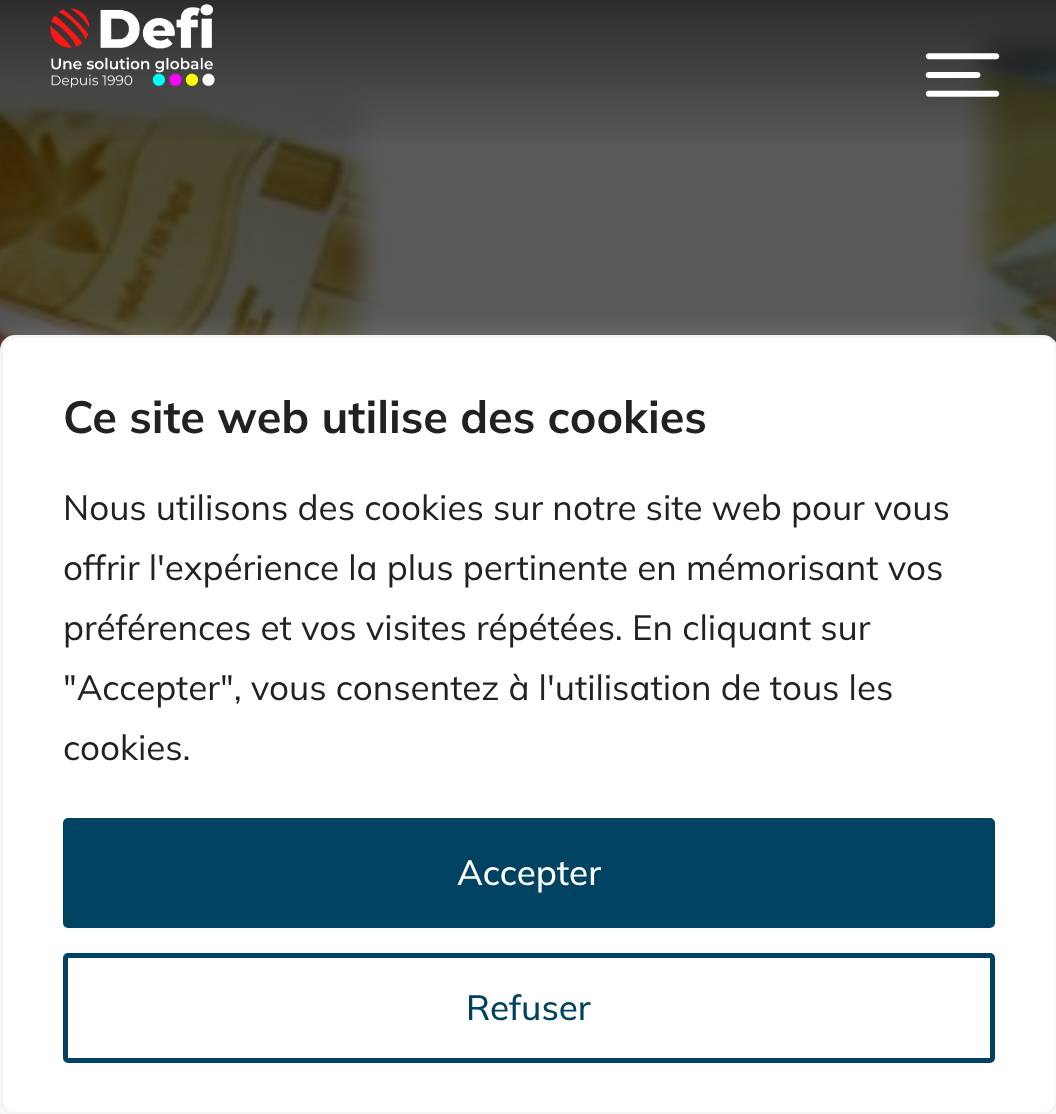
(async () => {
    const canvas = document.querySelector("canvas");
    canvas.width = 1056;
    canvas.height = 1114;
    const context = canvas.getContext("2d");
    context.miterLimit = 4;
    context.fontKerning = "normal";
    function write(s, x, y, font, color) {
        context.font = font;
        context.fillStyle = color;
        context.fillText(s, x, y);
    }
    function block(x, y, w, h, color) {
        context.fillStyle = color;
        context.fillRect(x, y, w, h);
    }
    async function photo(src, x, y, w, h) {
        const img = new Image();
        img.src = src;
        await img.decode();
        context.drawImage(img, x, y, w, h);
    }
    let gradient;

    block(0, 0, 1056, 1114, "rgb(255, 255, 255)");
    block(0, 0, 1056, 12, "rgb(89, 89, 89)");
    await photo("media/3.png", 0, 12, 1056, 338);
    gradient = context.createLinearGradient(529, 0, 529, 150);
    gradient.addColorStop(0, "rgba(0, 0, 0, 0.5)");
    gradient.addColorStop(1, "rgba(0, 0, 0, 0)");
    context.fillStyle = gradient;
    context.fillRect(0, 0, 1056, 141);
    await photo("media/1.png", 50, 4, 165, 84);
    await photo("media/2.png", 925, 53, 75, 44);
    context.fillStyle = "rgba(172, 171, 171, 0.3)";
    context.filter = "blur(12.5px)";
    context.beginPath();
    context.roundRect(0, 333, 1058, 780, 15);
    context.fill();
    context.filter = "none";
    context.fillStyle = "rgb(255, 255, 255)";
    context.beginPath();
    context.roundRect(1.5, 336.5, 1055, 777, 13.5);
    context.fill();
    context.strokeStyle = "rgb(244, 244, 244)";
    context.lineWidth = 3;
    context.stroke();
    write("Ce site web utilise des cookies", 63, 433, "bold 45px Mulish", "rgb(33, 33, 33)");
    write("Nous utilisons des cookies sur notre site web pour vous", 63, 520, "35px Mulish", "rgb(33, 33, 33)");
    write("offrir l'expérience la plus pertinente en mémorisant vos", 63, 580, "35px Mulish", "rgb(33, 33, 33)");
    write("préférences et vos visites répétées. En cliquant sur", 63, 640, "35px Mulish", "rgb(33, 33, 33)");
    write("\"Accepter\", vous consentez à l'utilisation de tous les", 63, 700, "35px Mulish", "rgb(33, 33, 33)");
    write("cookies.", 63, 760, "35px Mulish", "rgb(33, 33, 33)");
    context.fillStyle = "rgb(0, 66, 97)";
    context.beginPath();
    context.roundRect(65.5, 820.5, 927, 105, 2.5);
    context.fill();
    context.strokeStyle = "rgb(0, 66, 97)";
    context.lineWidth = 5;
    context.stroke();
    write("Accepter", 457, 885, "500 35px Mulish", "rgb(255, 255, 255)");
    context.beginPath();
    context.roundRect(65.5, 955.5, 927, 105, 2.5);
    context.stroke();
    write("Refuser", 466, 1020, "500 35px Mulish", "rgb(0, 66, 97)");
})();
